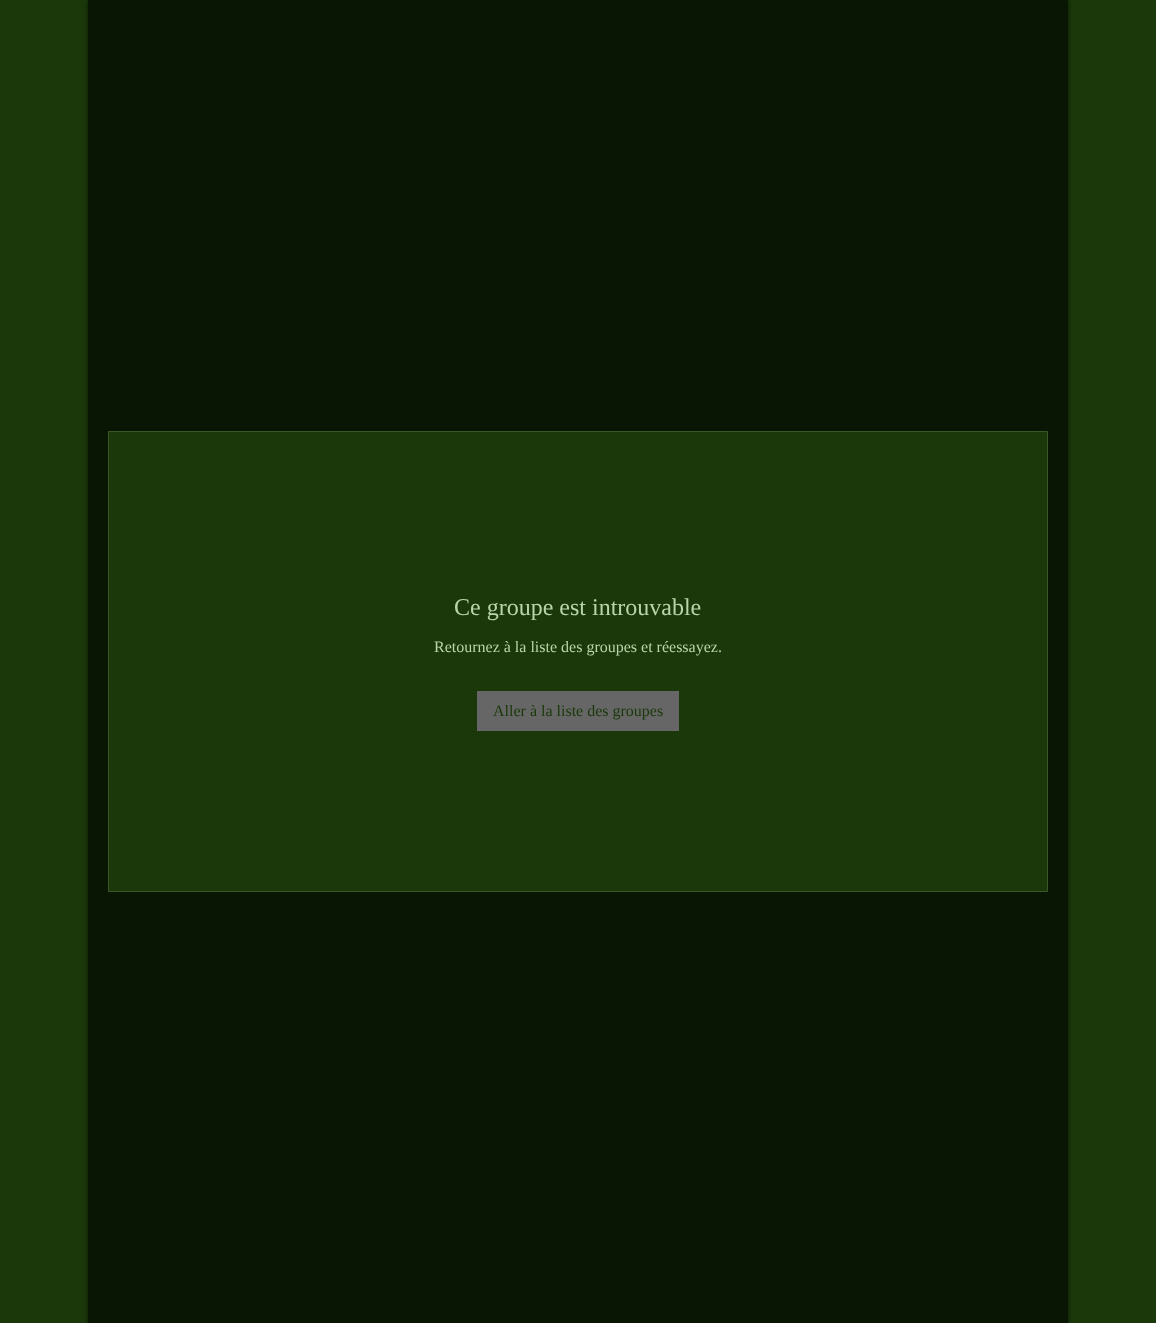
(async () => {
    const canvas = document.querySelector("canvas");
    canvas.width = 1156;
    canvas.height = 1323;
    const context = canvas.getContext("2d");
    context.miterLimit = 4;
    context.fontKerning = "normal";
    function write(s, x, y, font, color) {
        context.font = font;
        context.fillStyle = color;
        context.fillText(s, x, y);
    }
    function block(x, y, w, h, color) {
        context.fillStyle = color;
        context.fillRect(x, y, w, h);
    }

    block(0, 0, 1156, 1323, "rgb(26, 56, 10)");
    context.fillStyle = "rgba(0, 0, 0, 0.6)";
    context.filter = "blur(2px)";
    context.beginPath();
    context.rect(88, 1, 980, 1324);
    context.fill();
    context.filter = "none";
    block(88, 0, 980, 1323, "rgb(10, 22, 4)");
    context.fillStyle = "rgb(26, 56, 10)";
    context.beginPath();
    context.rect(108.5, 431.5, 939, 460);
    context.fill();
    context.strokeStyle = "rgb(58, 87, 42)";
    context.stroke();
    write("Ce groupe est introuvable", 454, 615, "24px Liberation Serif", "rgb(185, 212, 170)");
    write("Retournez à la liste des groupes et réessayez.", 434, 652, "16px Liberation Serif", "rgb(185, 212, 170)");
    block(477, 691, 202, 40, "rgb(102, 102, 102)");
    write("Aller à la liste des groupes", 493, 716, "16px Liberation Serif", "rgb(26, 56, 10)");
})();
